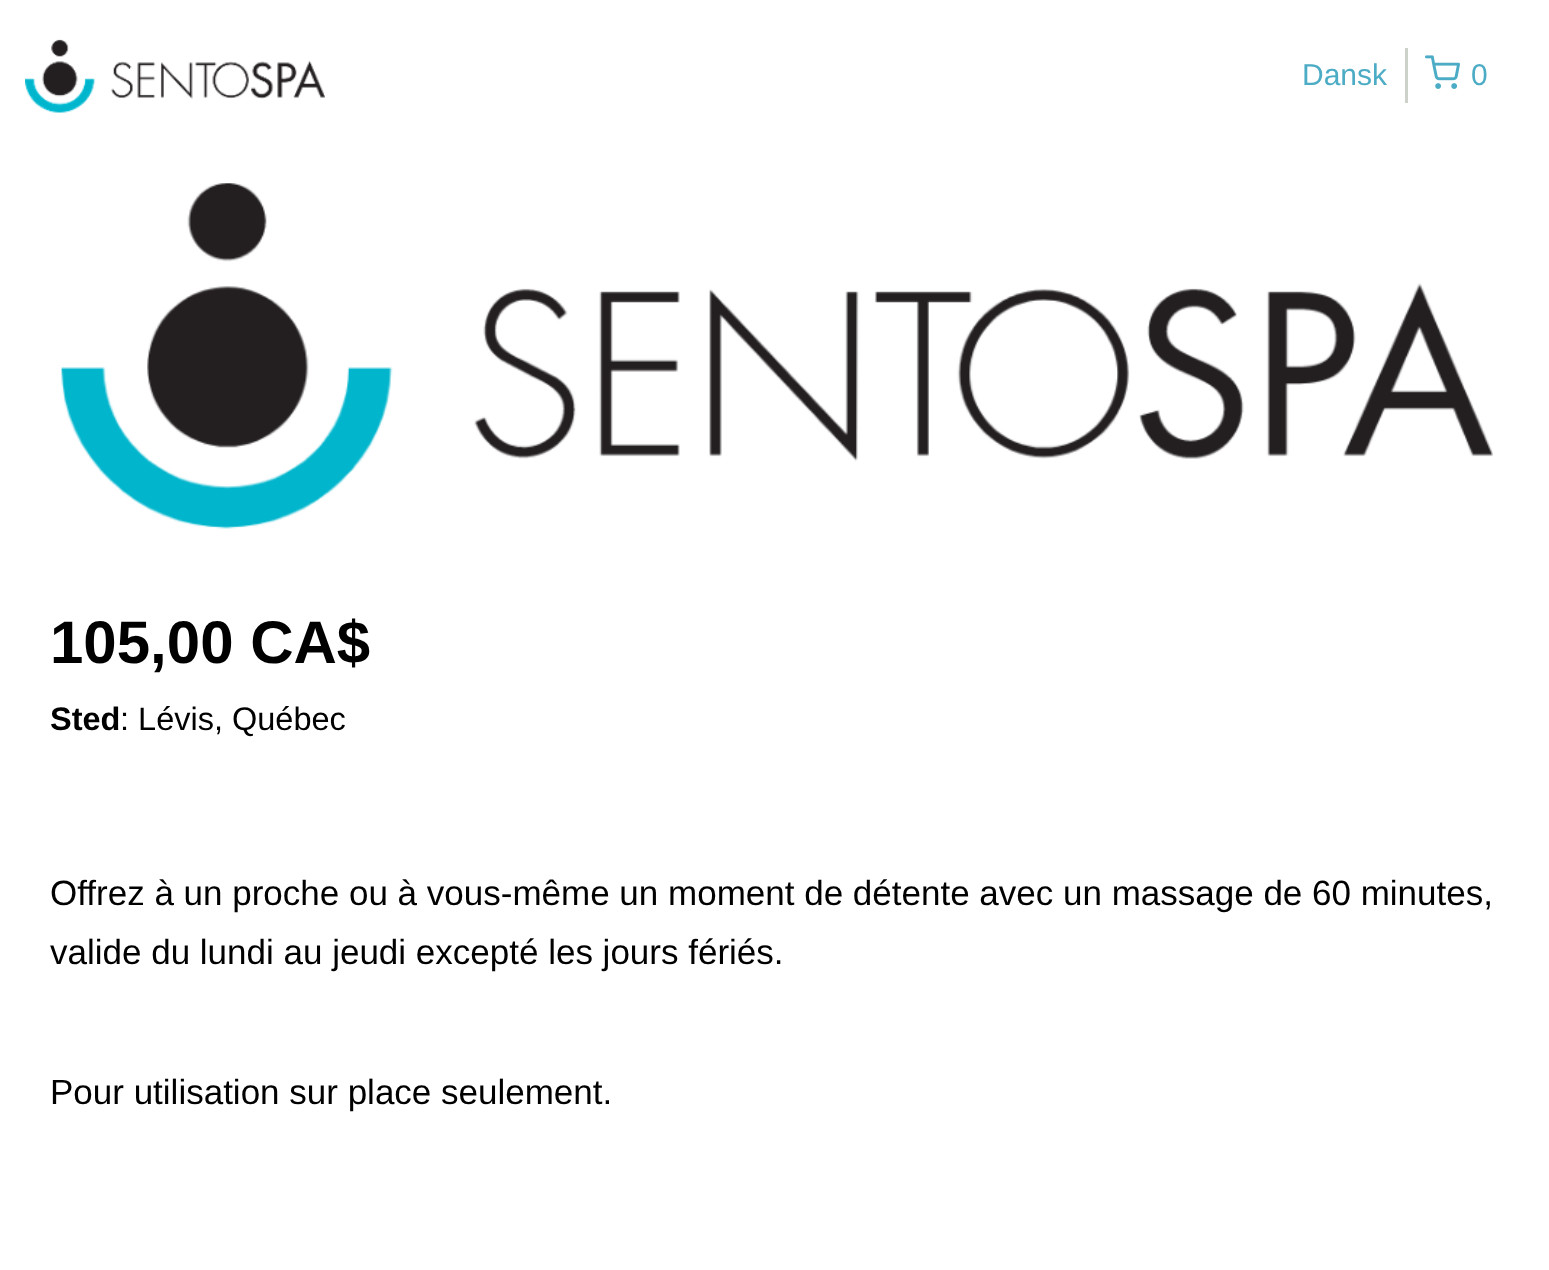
(async () => {
    const canvas = document.querySelector("canvas");
    canvas.width = 1549;
    canvas.height = 1270;
    const context = canvas.getContext("2d");
    context.miterLimit = 4;
    context.fontKerning = "normal";
    function write(s, x, y, font, color) {
        context.font = font;
        context.fillStyle = color;
        context.fillText(s, x, y);
    }
    function block(x, y, w, h, color) {
        context.fillStyle = color;
        context.fillRect(x, y, w, h);
    }
    async function photo(src, x, y, w, h) {
        const img = new Image();
        img.src = src;
        await img.decode();
        context.drawImage(img, x, y, w, h);
    }

    block(0, 0, 1549, 1270, "rgb(255, 255, 255)");
    await photo("media/1.png", 25, 39, 300, 74);
    block(1405, 48, 3, 55, "rgb(204, 209, 202)");
    write("Dansk", 1302, 85, "30px Liberation Sans", "rgb(77, 172, 197)");
    await photo("media/2.png", 1425, 55, 35, 34);
    write("0", 1471, 85, "30px Liberation Sans", "rgb(77, 172, 197)");
    await photo("media/3.png", 61, 183, 1432, 346);
    write("105,00 CA$", 50, 663, "bold 60px Liberation Sans", "rgb(0, 0, 0)");
    write("Sted", 50, 730, "bold 32.5px Liberation Sans", "rgb(0, 0, 0)");
    write(": Lévis, Québec", 120, 730, "32.5px Liberation Sans", "rgb(0, 0, 0)");
    write("Offrez à un proche ou à vous-même un moment de détente avec un massage de 60 minutes,", 50, 905, "35px Liberation Sans", "rgb(0, 0, 0)");
    write("valide du lundi au jeudi excepté les jours fériés.", 50, 964, "35px Liberation Sans", "rgb(0, 0, 0)");
    write("Pour utilisation sur place seulement.", 50, 1104, "35px Liberation Sans", "rgb(0, 0, 0)");
})();
